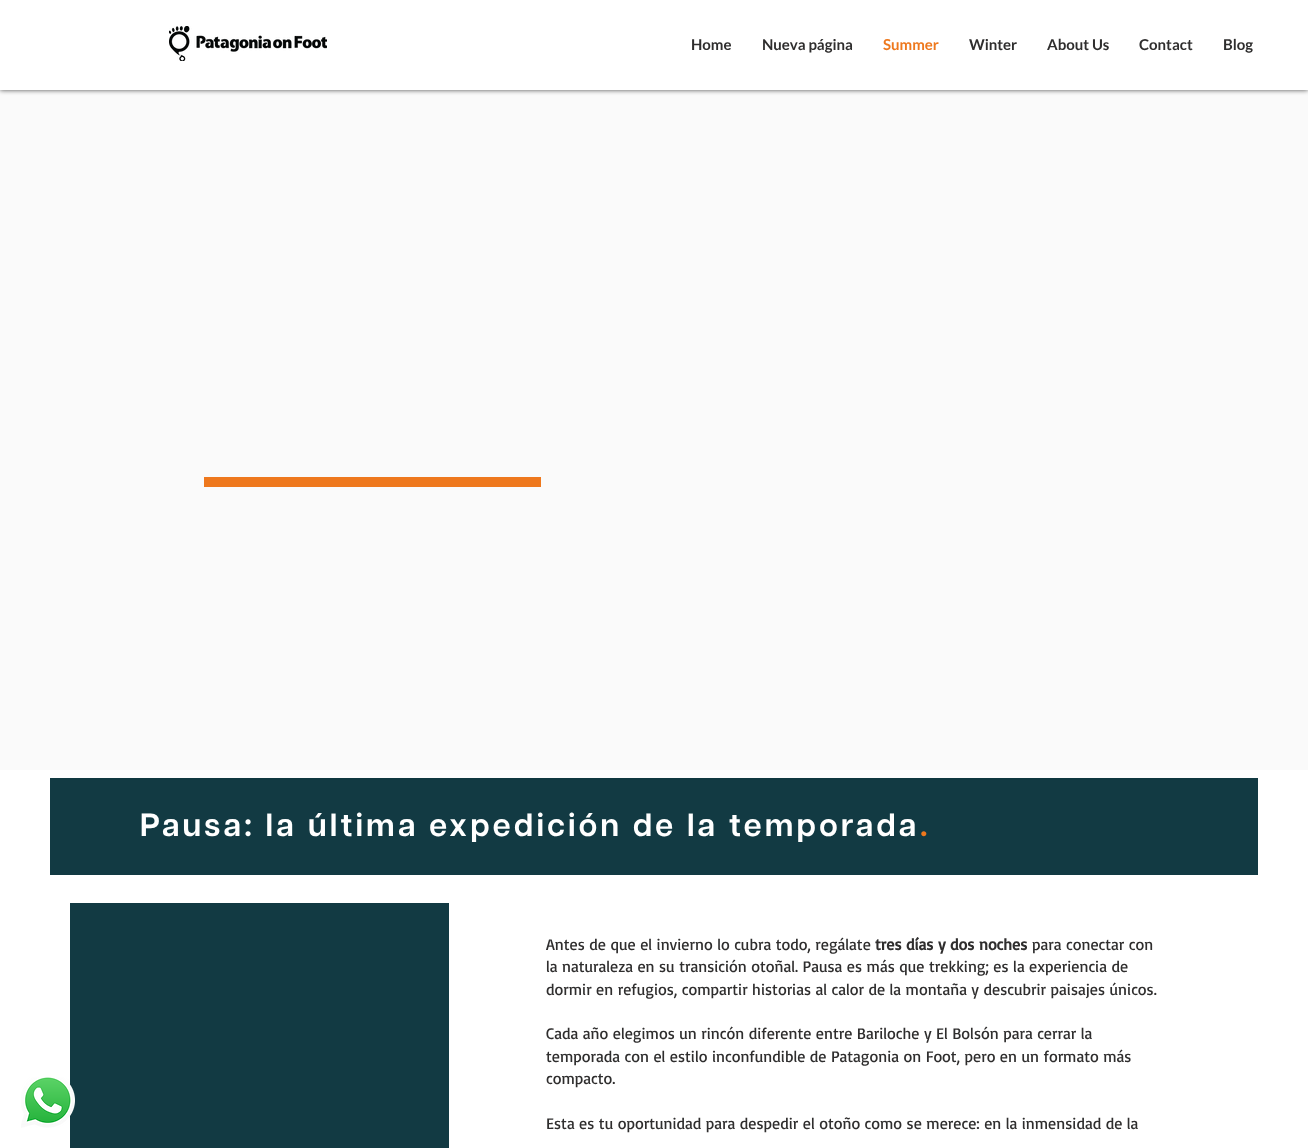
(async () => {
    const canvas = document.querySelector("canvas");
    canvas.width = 1308;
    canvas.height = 1148;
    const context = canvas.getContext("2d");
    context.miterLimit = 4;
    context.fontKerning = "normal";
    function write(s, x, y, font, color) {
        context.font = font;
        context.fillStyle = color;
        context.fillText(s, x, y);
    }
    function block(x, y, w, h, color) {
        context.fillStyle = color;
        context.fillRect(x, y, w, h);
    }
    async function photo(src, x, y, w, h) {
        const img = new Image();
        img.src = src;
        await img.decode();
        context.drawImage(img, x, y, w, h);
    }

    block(0, 0, 1308, 1148, "rgb(255, 255, 255)");
    block(0, 90, 1308, 680, "rgb(250, 250, 250)");
    context.fillStyle = "rgba(0, 0, 0, 0.7)";
    context.filter = "blur(2.5px)";
    context.beginPath();
    context.rect(0, 0, 1308, 90);
    context.fill();
    context.filter = "none";
    block(0, 0, 1308, 90, "rgb(255, 255, 255)");
    await photo("media/1.png", 169, 26, 158, 35);
    write("Home", 691, 50, "bold 15px Lato", "rgb(47, 46, 46)");
    write("Nueva página", 762, 50, "bold 15px Lato", "rgb(47, 46, 46)");
    write("Summer", 883, 50, "bold 15px Lato", "rgb(238, 120, 29)");
    write("Winter", 969, 50, "bold 15px Lato", "rgb(47, 46, 46)");
    write("About Us", 1047, 50, "bold 15px Lato", "rgb(47, 46, 46)");
    write("Contact", 1139, 50, "bold 15px Lato", "rgb(47, 46, 46)");
    write("Blog", 1223, 50, "bold 15px Lato", "rgb(47, 46, 46)");
    block(70, 903, 379, 245, "rgb(18, 58, 67)");
    await photo("media/2.png", 21, 1077, 54, 51);
    block(204, 477, 337, 10, "rgb(238, 120, 29)");
    block(50, 778, 1208, 97, "rgb(18, 58, 67)");
    context.letterSpacing = "3.2px";
    write("Pausa: la última expedición de la temporada", 140, 836, "600 32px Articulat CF", "rgb(255, 255, 255)");
    write(".", 920, 836, "600 32px Articulat CF", "rgb(238, 120, 29)");
    context.letterSpacing = "0px";
    write("Antes de que el invierno lo cubra todo, regálate", 546, 950, "16px Basic", "rgb(47, 46, 46)");
    write("tres días y dos noches", 875, 950, "bold 16px Basic", "rgb(47, 46, 46)");
    write("para conectar con", 1032, 950, "16px Basic", "rgb(47, 46, 46)");
    write("la naturaleza en su transición otoñal. Pausa es más que trekking; es la experiencia de", 546, 972, "16px Basic", "rgb(47, 46, 46)");
    write("dormir en refugios, compartir historias al calor de la montaña y descubrir paisajes únicos.", 546, 995, "16px Basic", "rgb(47, 46, 46)");
    write("Cada año elegimos un rincón diferente entre Bariloche y El Bolsón para cerrar la", 546, 1039, "16px Basic", "rgb(47, 46, 46)");
    write("temporada con el estilo inconfundible de Patagonia on Foot, pero en un formato más", 546, 1062, "16px Basic", "rgb(47, 46, 46)");
    write("compacto.", 546, 1084, "16px Basic", "rgb(47, 46, 46)");
    write("Esta es tu oportunidad para despedir el otoño como se merece: en la inmensidad de la", 546, 1129, "16px Basic", "rgb(47, 46, 46)");
})();
